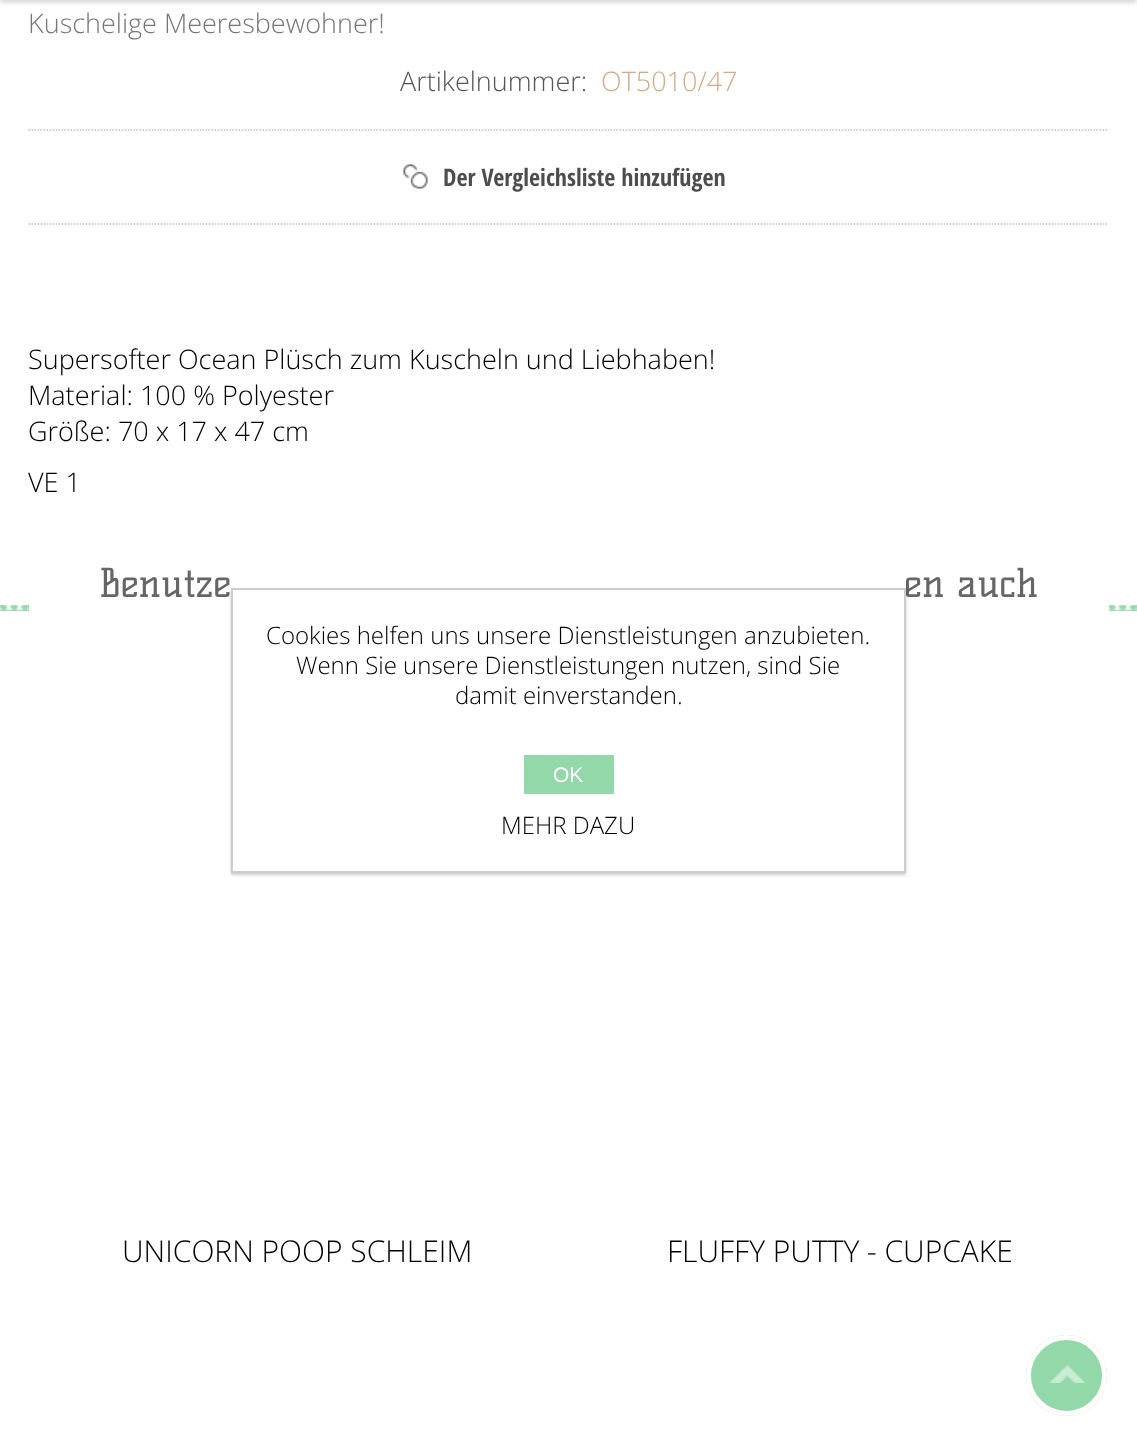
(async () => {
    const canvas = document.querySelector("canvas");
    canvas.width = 1137;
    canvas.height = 1445;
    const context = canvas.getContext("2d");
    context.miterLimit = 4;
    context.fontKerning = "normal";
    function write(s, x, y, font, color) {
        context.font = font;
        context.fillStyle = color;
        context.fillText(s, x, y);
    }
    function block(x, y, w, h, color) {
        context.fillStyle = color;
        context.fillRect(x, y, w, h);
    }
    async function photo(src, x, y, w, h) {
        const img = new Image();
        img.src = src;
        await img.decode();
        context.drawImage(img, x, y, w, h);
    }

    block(0, 0, 1137, 1445, "rgb(255, 255, 255)");
    context.fillStyle = "rgba(0, 0, 0, 0.15)";
    context.filter = "blur(2px)";
    context.beginPath();
    context.rect(0, -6, 1137, 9);
    context.fill();
    context.filter = "none";
    write("Kuschelige Meeresbewohner!", 28, 33, "300 27px Open Sans", "rgb(119, 119, 119)");
    write("Artikelnummer:", 400, 91, "300 27px Open Sans", "rgb(85, 85, 85)");
    write("OT5010/47", 601, 91, "300 27px Open Sans", "rgb(214, 169, 133)");
    context.beginPath();
    context.moveTo(28.5, 130);
    context.lineTo(1108.5, 130);
    context.strokeStyle = "rgb(192, 192, 192)";
    context.lineWidth = 1.5;
    context.setLineDash([1.5, 1.5]);
    context.stroke();
    context.beginPath();
    context.moveTo(28.5, 224);
    context.lineTo(1108.5, 224);
    context.stroke();
    await photo("media/1.png", 403, 164, 25, 25);
    write("Der Vergleichsliste hinzufügen", 443, 186, "bold 24px Open Sans Condensed", "rgb(77, 77, 77)");
    write("Supersofter Ocean Plüsch zum Kuscheln und Liebhaben!", 28, 369, "300 27px Open Sans", "rgb(0, 0, 0)");
    write("Material: 100 % Polyester", 28, 405, "300 27px Open Sans", "rgb(0, 0, 0)");
    write("Größe: 70 x 17 x 47 cm", 28, 441, "300 27px Open Sans", "rgb(0, 0, 0)");
    write("VE 1", 28, 492, "300 27px Open Sans", "rgb(0, 0, 0)");
    write("Benutze", 99, 597, "39px Kelly Slab", "rgb(102, 102, 102)");
    write("en auch", 904, 597, "39px Kelly Slab", "rgb(102, 102, 102)");
    block(0, 605, 29, 6, "rgb(147, 216, 168)");
    await photo("media/2.png", 0, 605, 29, 6);
    block(1109, 605, 28, 6, "rgb(147, 216, 168)");
    await photo("media/3.png", 1109, 605, 28, 6);
    write("UNICORN POOP SCHLEIM", 122, 1262, "300 30px Open Sans", "rgb(0, 0, 0)");
    write("FLUFFY PUTTY - CUPCAKE", 667, 1262, "300 30px Open Sans", "rgb(0, 0, 0)");
    context.fillStyle = "rgba(0, 0, 0, 0.2)";
    context.filter = "blur(1.5px)";
    context.beginPath();
    context.rect(231, 590, 675, 285);
    context.fill();
    context.filter = "none";
    context.fillStyle = "rgb(255, 255, 255)";
    context.beginPath();
    context.rect(232, 589, 673, 283);
    context.fill();
    context.strokeStyle = "rgb(204, 204, 204)";
    context.lineWidth = 2;
    context.setLineDash([]);
    context.stroke();
    write("Cookies helfen uns unsere Dienstleistungen anzubieten.", 266, 644, "300 24px Open Sans", "rgb(0, 0, 0)");
    write("Wenn Sie unsere Dienstleistungen nutzen, sind Sie", 296, 674, "300 24px Open Sans", "rgb(0, 0, 0)");
    write("damit einverstanden.", 455, 704, "300 24px Open Sans", "rgb(0, 0, 0)");
    block(524, 755, 90, 39, "rgb(147, 216, 168)");
    write("OK", 553, 782, "21px Liberation Sans", "rgb(255, 255, 255)");
    write("MEHR DAZU", 501, 834, "300 24px Open Sans", "rgb(0, 0, 0)");
    context.fillStyle = "rgb(147, 216, 168)";
    context.beginPath();
    context.arc(1066.5, 1375.5, 40.5, 0, Math.PI * 2);
    context.fill();
    await photo("media/4.png", 1049, 1365, 37, 18);
    context.beginPath();
    context.arc(1066.5, 1375.5, 38, 0, Math.PI * 2);
    context.strokeStyle = "rgb(255, 255, 255)";
    context.lineWidth = 5;
    context.stroke();
})();
